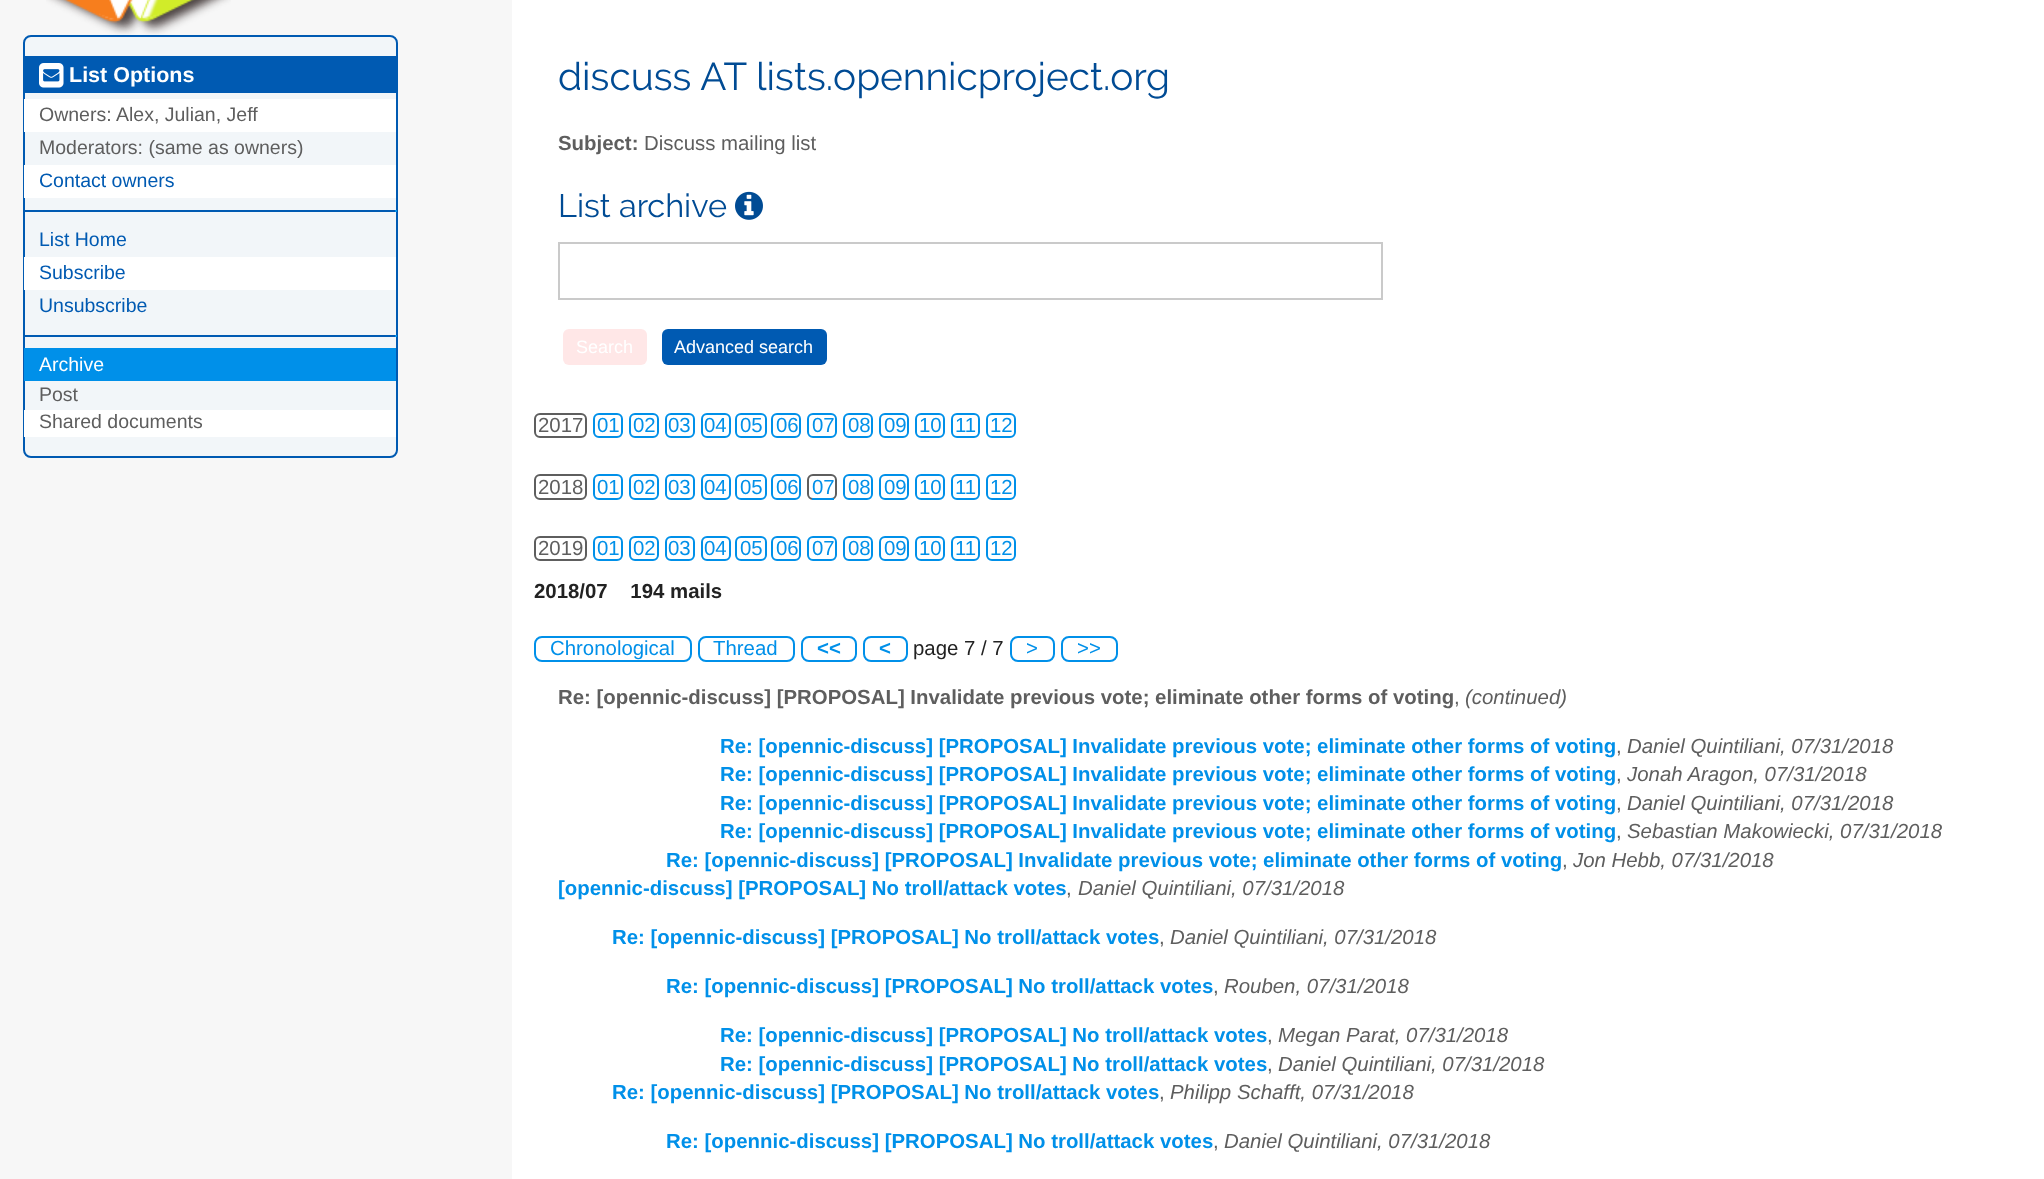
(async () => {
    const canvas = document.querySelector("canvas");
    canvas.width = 2044;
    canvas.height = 1179;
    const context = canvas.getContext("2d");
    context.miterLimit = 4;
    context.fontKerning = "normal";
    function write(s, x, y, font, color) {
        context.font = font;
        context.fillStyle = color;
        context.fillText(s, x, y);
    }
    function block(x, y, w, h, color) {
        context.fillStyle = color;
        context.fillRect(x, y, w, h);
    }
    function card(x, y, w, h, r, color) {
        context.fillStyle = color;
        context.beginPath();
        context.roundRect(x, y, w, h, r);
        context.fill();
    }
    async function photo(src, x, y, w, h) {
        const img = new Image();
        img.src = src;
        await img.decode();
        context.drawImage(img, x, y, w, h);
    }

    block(0, 0, 2044, 1179, "rgb(247, 247, 247)");
    await photo("media/1.png", 46, 0, 185, 35);
    block(512, 0, 1532, 1179, "rgb(255, 255, 255)");
    context.fillStyle = "rgb(242, 246, 249)";
    context.beginPath();
    context.roundRect(24, 36, 373, 421, 7);
    context.fill();
    context.strokeStyle = "rgb(0, 90, 178)";
    context.lineWidth = 2;
    context.stroke();
    block(25, 56, 371, 37, "rgb(0, 90, 178)");
    await photo("media/2.png", 39, 63, 25, 25);
    write("List Options", 69, 82, "bold 21.5px Liberation Sans", "rgb(255, 255, 255)");
    block(24, 99, 372, 33, "rgb(255, 255, 255)");
    write("Owners:", 39, 121, "19.5px Liberation Sans", "rgb(94, 94, 94)");
    write("Alex, Julian, Jeff", 116, 121, "19.5px Liberation Sans", "rgb(94, 94, 94)");
    write("Moderators: (same as owners)", 39, 154, "19.5px Liberation Sans", "rgb(94, 94, 94)");
    block(24, 165, 372, 33, "rgb(255, 255, 255)");
    write("Contact owners", 39, 187, "19.5px Liberation Sans", "rgb(0, 90, 178)");
    block(24, 210, 372, 2, "rgb(0, 90, 178)");
    block(395, 210, 2, 2, "rgb(0, 144, 233)");
    write("List Home", 39, 246, "19.5px Liberation Sans", "rgb(0, 90, 178)");
    block(24, 257, 372, 33, "rgb(255, 255, 255)");
    write("Subscribe", 39, 279, "19.5px Liberation Sans", "rgb(0, 90, 178)");
    write("Unsubscribe", 39, 312, "19.5px Liberation Sans", "rgb(0, 90, 178)");
    block(24, 335, 372, 2, "rgb(0, 90, 178)");
    block(395, 335, 2, 2, "rgb(0, 144, 233)");
    block(24, 348, 372, 33, "rgb(0, 144, 233)");
    write("Archive", 39, 371, "19.5px Liberation Sans", "rgb(255, 255, 255)");
    write("Post", 39, 401, "19.5px Liberation Sans", "rgb(94, 94, 94)");
    block(24, 410, 372, 27, "rgb(255, 255, 255)");
    write("Shared documents", 39, 428, "19.5px Liberation Sans", "rgb(94, 94, 94)");
    write("discuss AT lists.opennicproject.org", 558, 90, "38.75px Raleway", "rgb(0, 75, 148)");
    write("Subject:", 558, 150, "bold 20.4px Liberation Sans", "rgb(94, 94, 94)");
    write("Discuss mailing list", 644, 150, "20.4px Liberation Sans", "rgb(94, 94, 94)");
    write("List archive", 558, 217, "32.5px Raleway", "rgb(0, 75, 148)");
    await photo("media/3.png", 735, 191, 28, 29);
    context.strokeStyle = "rgb(202, 202, 202)";
    context.strokeRect(559, 243, 823, 56);
    card(563, 329, 84, 36, 6, "rgb(255, 231, 231)");
    write("Search", 576, 353, "18px Liberation Sans", "rgb(255, 255, 255)");
    card(662, 329, 165, 36, 6, "rgb(0, 90, 178)");
    write("Advanced search", 674, 353, "18px Liberation Sans", "rgb(255, 255, 255)");
    context.beginPath();
    context.roundRect(535, 414, 51, 23, 5);
    context.strokeStyle = "rgb(94, 94, 94)";
    context.stroke();
    write("2017", 538, 432, "20.4px Liberation Sans", "rgb(94, 94, 94)");
    context.beginPath();
    context.roundRect(594, 414, 28, 23, 5);
    context.strokeStyle = "rgb(0, 144, 233)";
    context.stroke();
    write("01", 597, 432, "20.4px Liberation Sans", "rgb(0, 144, 233)");
    context.beginPath();
    context.roundRect(630, 414, 28, 23, 5);
    context.stroke();
    write("02", 633, 432, "20.4px Liberation Sans", "rgb(0, 144, 233)");
    context.beginPath();
    context.roundRect(666, 414, 28, 23, 5);
    context.stroke();
    write("03", 668, 432, "20.4px Liberation Sans", "rgb(0, 144, 233)");
    context.beginPath();
    context.roundRect(702, 414, 28, 23, 5);
    context.stroke();
    write("04", 704, 432, "20.4px Liberation Sans", "rgb(0, 144, 233)");
    context.beginPath();
    context.roundRect(736, 414, 30, 23, 5);
    context.stroke();
    write("05", 740, 432, "20.4px Liberation Sans", "rgb(0, 144, 233)");
    context.beginPath();
    context.roundRect(772, 414, 28, 23, 5);
    context.stroke();
    write("06", 776, 432, "20.4px Liberation Sans", "rgb(0, 144, 233)");
    context.beginPath();
    context.roundRect(808, 414, 28, 23, 5);
    context.stroke();
    write("07", 812, 432, "20.4px Liberation Sans", "rgb(0, 144, 233)");
    context.beginPath();
    context.roundRect(844, 414, 28, 23, 5);
    context.stroke();
    write("08", 848, 432, "20.4px Liberation Sans", "rgb(0, 144, 233)");
    context.beginPath();
    context.roundRect(880, 414, 28, 23, 5);
    context.stroke();
    write("09", 884, 432, "20.4px Liberation Sans", "rgb(0, 144, 233)");
    context.beginPath();
    context.roundRect(916, 414, 28, 23, 5);
    context.stroke();
    write("10", 919, 432, "20.4px Liberation Sans", "rgb(0, 144, 233)");
    context.beginPath();
    context.roundRect(952, 414, 27, 23, 5);
    context.stroke();
    write("11", 955, 432, "20.4px Liberation Sans", "rgb(0, 144, 233)");
    context.beginPath();
    context.roundRect(987, 414, 28, 23, 5);
    context.stroke();
    write("12", 990, 432, "20.4px Liberation Sans", "rgb(0, 144, 233)");
    context.beginPath();
    context.roundRect(535, 475, 51, 24, 5);
    context.strokeStyle = "rgb(94, 94, 94)";
    context.stroke();
    write("2018", 538, 494, "20.4px Liberation Sans", "rgb(94, 94, 94)");
    context.beginPath();
    context.roundRect(594, 475, 28, 24, 5);
    context.strokeStyle = "rgb(0, 144, 233)";
    context.stroke();
    write("01", 597, 494, "20.4px Liberation Sans", "rgb(0, 144, 233)");
    context.beginPath();
    context.roundRect(630, 475, 28, 24, 5);
    context.stroke();
    write("02", 633, 494, "20.4px Liberation Sans", "rgb(0, 144, 233)");
    context.beginPath();
    context.roundRect(666, 475, 28, 24, 5);
    context.stroke();
    write("03", 668, 494, "20.4px Liberation Sans", "rgb(0, 144, 233)");
    context.beginPath();
    context.roundRect(702, 475, 28, 24, 5);
    context.stroke();
    write("04", 704, 494, "20.4px Liberation Sans", "rgb(0, 144, 233)");
    context.beginPath();
    context.roundRect(736, 475, 30, 24, 5);
    context.stroke();
    write("05", 740, 494, "20.4px Liberation Sans", "rgb(0, 144, 233)");
    context.beginPath();
    context.roundRect(772, 475, 28, 24, 5);
    context.stroke();
    write("06", 776, 494, "20.4px Liberation Sans", "rgb(0, 144, 233)");
    context.beginPath();
    context.roundRect(808, 475, 28, 24, 5);
    context.strokeStyle = "rgb(94, 94, 94)";
    context.stroke();
    write("07", 812, 494, "20.4px Liberation Sans", "rgb(0, 144, 233)");
    block(812, 498, 22, 2, "rgb(0, 144, 233)");
    context.beginPath();
    context.roundRect(844, 475, 28, 24, 5);
    context.strokeStyle = "rgb(0, 144, 233)";
    context.stroke();
    write("08", 848, 494, "20.4px Liberation Sans", "rgb(0, 144, 233)");
    context.beginPath();
    context.roundRect(880, 475, 28, 24, 5);
    context.stroke();
    write("09", 884, 494, "20.4px Liberation Sans", "rgb(0, 144, 233)");
    context.beginPath();
    context.roundRect(916, 475, 28, 24, 5);
    context.stroke();
    write("10", 919, 494, "20.4px Liberation Sans", "rgb(0, 144, 233)");
    context.beginPath();
    context.roundRect(952, 475, 27, 24, 5);
    context.stroke();
    write("11", 955, 494, "20.4px Liberation Sans", "rgb(0, 144, 233)");
    context.beginPath();
    context.roundRect(987, 475, 28, 24, 5);
    context.stroke();
    write("12", 990, 494, "20.4px Liberation Sans", "rgb(0, 144, 233)");
    context.beginPath();
    context.roundRect(535, 537, 51, 23, 5);
    context.strokeStyle = "rgb(94, 94, 94)";
    context.stroke();
    write("2019", 538, 555, "20.4px Liberation Sans", "rgb(94, 94, 94)");
    context.beginPath();
    context.roundRect(594, 537, 28, 23, 5);
    context.strokeStyle = "rgb(0, 144, 233)";
    context.stroke();
    write("01", 597, 555, "20.4px Liberation Sans", "rgb(0, 144, 233)");
    context.beginPath();
    context.roundRect(630, 537, 28, 23, 5);
    context.stroke();
    write("02", 633, 555, "20.4px Liberation Sans", "rgb(0, 144, 233)");
    context.beginPath();
    context.roundRect(666, 537, 28, 23, 5);
    context.stroke();
    write("03", 668, 555, "20.4px Liberation Sans", "rgb(0, 144, 233)");
    context.beginPath();
    context.roundRect(702, 537, 28, 23, 5);
    context.stroke();
    write("04", 704, 555, "20.4px Liberation Sans", "rgb(0, 144, 233)");
    context.beginPath();
    context.roundRect(736, 537, 30, 23, 5);
    context.stroke();
    write("05", 740, 555, "20.4px Liberation Sans", "rgb(0, 144, 233)");
    context.beginPath();
    context.roundRect(772, 537, 28, 23, 5);
    context.stroke();
    write("06", 776, 555, "20.4px Liberation Sans", "rgb(0, 144, 233)");
    context.beginPath();
    context.roundRect(808, 537, 28, 23, 5);
    context.stroke();
    write("07", 812, 555, "20.4px Liberation Sans", "rgb(0, 144, 233)");
    context.beginPath();
    context.roundRect(844, 537, 28, 23, 5);
    context.stroke();
    write("08", 848, 555, "20.4px Liberation Sans", "rgb(0, 144, 233)");
    context.beginPath();
    context.roundRect(880, 537, 28, 23, 5);
    context.stroke();
    write("09", 884, 555, "20.4px Liberation Sans", "rgb(0, 144, 233)");
    context.beginPath();
    context.roundRect(916, 537, 28, 23, 5);
    context.stroke();
    write("10", 919, 555, "20.4px Liberation Sans", "rgb(0, 144, 233)");
    context.beginPath();
    context.roundRect(952, 537, 27, 23, 5);
    context.stroke();
    write("11", 955, 555, "20.4px Liberation Sans", "rgb(0, 144, 233)");
    context.beginPath();
    context.roundRect(987, 537, 28, 23, 5);
    context.stroke();
    write("12", 990, 555, "20.4px Liberation Sans", "rgb(0, 144, 233)");
    write("2018/07    194 mails", 534, 598, "bold 20.4px Liberation Sans", "rgb(34, 34, 34)");
    context.beginPath();
    context.roundRect(535, 637, 156, 24, 7);
    context.stroke();
    write("Chronological", 550, 655, "20.4px Liberation Sans", "rgb(0, 144, 233)");
    context.beginPath();
    context.roundRect(699, 637, 95, 24, 7);
    context.stroke();
    write("Thread", 713, 655, "20.4px Liberation Sans", "rgb(0, 144, 233)");
    context.beginPath();
    context.roundRect(802, 637, 54, 24, 7);
    context.stroke();
    write("<<", 817, 655, "bold 20.4px Liberation Sans", "rgb(0, 144, 233)");
    context.beginPath();
    context.roundRect(864, 637, 43, 24, 7);
    context.stroke();
    write("<", 879, 655, "bold 20.4px Liberation Sans", "rgb(0, 144, 233)");
    write("page 7 / 7", 913, 655, "20.4px Liberation Sans", "rgb(34, 34, 34)");
    context.beginPath();
    context.roundRect(1011, 637, 43, 24, 7);
    context.stroke();
    write(">", 1026, 655, "20.4px Liberation Sans", "rgb(0, 144, 233)");
    context.beginPath();
    context.roundRect(1062, 637, 55, 24, 7);
    context.stroke();
    write(">>", 1077, 655, "20.4px Liberation Sans", "rgb(0, 144, 233)");
    write("Re: [opennic-discuss] [PROPOSAL] Invalidate previous vote; eliminate other forms of voting", 558, 704, "bold 20.4px Liberation Sans", "rgb(94, 94, 94)");
    write(",", 1454, 704, "20.4px Liberation Sans", "rgb(94, 94, 94)");
    write("(continued)", 1465, 704, "italic 20.4px Liberation Sans", "rgb(94, 94, 94)");
    write("Re: [opennic-discuss] [PROPOSAL] Invalidate previous vote; eliminate other forms of voting", 720, 753, "bold 20.4px Liberation Sans", "rgb(0, 144, 233)");
    write(",", 1616, 753, "20.4px Liberation Sans", "rgb(94, 94, 94)");
    write("Daniel Quintiliani, 07/31/2018", 1627, 753, "italic 20.4px Liberation Sans", "rgb(94, 94, 94)");
    write("Re: [opennic-discuss] [PROPOSAL] Invalidate previous vote; eliminate other forms of voting", 720, 781, "bold 20.4px Liberation Sans", "rgb(0, 144, 233)");
    write(",", 1616, 781, "20.4px Liberation Sans", "rgb(94, 94, 94)");
    write("Jonah Aragon, 07/31/2018", 1627, 781, "italic 20.4px Liberation Sans", "rgb(94, 94, 94)");
    write("Re: [opennic-discuss] [PROPOSAL] Invalidate previous vote; eliminate other forms of voting", 720, 810, "bold 20.4px Liberation Sans", "rgb(0, 144, 233)");
    write(",", 1616, 810, "20.4px Liberation Sans", "rgb(94, 94, 94)");
    write("Daniel Quintiliani, 07/31/2018", 1627, 810, "italic 20.4px Liberation Sans", "rgb(94, 94, 94)");
    write("Re: [opennic-discuss] [PROPOSAL] Invalidate previous vote; eliminate other forms of voting", 720, 838, "bold 20.4px Liberation Sans", "rgb(0, 144, 233)");
    write(",", 1616, 838, "20.4px Liberation Sans", "rgb(94, 94, 94)");
    write("Sebastian Makowiecki, 07/31/2018", 1627, 838, "italic 20.4px Liberation Sans", "rgb(94, 94, 94)");
    write("Re: [opennic-discuss] [PROPOSAL] Invalidate previous vote; eliminate other forms of voting", 666, 867, "bold 20.4px Liberation Sans", "rgb(0, 144, 233)");
    write(",", 1562, 867, "20.4px Liberation Sans", "rgb(94, 94, 94)");
    write("Jon Hebb, 07/31/2018", 1573, 867, "italic 20.4px Liberation Sans", "rgb(94, 94, 94)");
    write("[opennic-discuss] [PROPOSAL] No troll/attack votes", 558, 895, "bold 20.4px Liberation Sans", "rgb(0, 144, 233)");
    write(",", 1066, 895, "20.4px Liberation Sans", "rgb(94, 94, 94)");
    write("Daniel Quintiliani, 07/31/2018", 1078, 895, "italic 20.4px Liberation Sans", "rgb(94, 94, 94)");
    write("Re: [opennic-discuss] [PROPOSAL] No troll/attack votes", 612, 944, "bold 20.4px Liberation Sans", "rgb(0, 144, 233)");
    write(",", 1159, 944, "20.4px Liberation Sans", "rgb(94, 94, 94)");
    write("Daniel Quintiliani, 07/31/2018", 1170, 944, "italic 20.4px Liberation Sans", "rgb(94, 94, 94)");
    write("Re: [opennic-discuss] [PROPOSAL] No troll/attack votes", 666, 993, "bold 20.4px Liberation Sans", "rgb(0, 144, 233)");
    write(",", 1213, 993, "20.4px Liberation Sans", "rgb(94, 94, 94)");
    write("Rouben, 07/31/2018", 1224, 993, "italic 20.4px Liberation Sans", "rgb(94, 94, 94)");
    write("Re: [opennic-discuss] [PROPOSAL] No troll/attack votes", 720, 1042, "bold 20.4px Liberation Sans", "rgb(0, 144, 233)");
    write(",", 1267, 1042, "20.4px Liberation Sans", "rgb(94, 94, 94)");
    write("Megan Parat, 07/31/2018", 1278, 1042, "italic 20.4px Liberation Sans", "rgb(94, 94, 94)");
    write("Re: [opennic-discuss] [PROPOSAL] No troll/attack votes", 720, 1071, "bold 20.4px Liberation Sans", "rgb(0, 144, 233)");
    write(",", 1267, 1071, "20.4px Liberation Sans", "rgb(94, 94, 94)");
    write("Daniel Quintiliani, 07/31/2018", 1278, 1071, "italic 20.4px Liberation Sans", "rgb(94, 94, 94)");
    write("Re: [opennic-discuss] [PROPOSAL] No troll/attack votes", 612, 1099, "bold 20.4px Liberation Sans", "rgb(0, 144, 233)");
    write(",", 1159, 1099, "20.4px Liberation Sans", "rgb(94, 94, 94)");
    write("Philipp Schafft, 07/31/2018", 1170, 1099, "italic 20.4px Liberation Sans", "rgb(94, 94, 94)");
    write("Re: [opennic-discuss] [PROPOSAL] No troll/attack votes", 666, 1148, "bold 20.4px Liberation Sans", "rgb(0, 144, 233)");
    write(",", 1213, 1148, "20.4px Liberation Sans", "rgb(94, 94, 94)");
    write("Daniel Quintiliani, 07/31/2018", 1224, 1148, "italic 20.4px Liberation Sans", "rgb(94, 94, 94)");
})();
